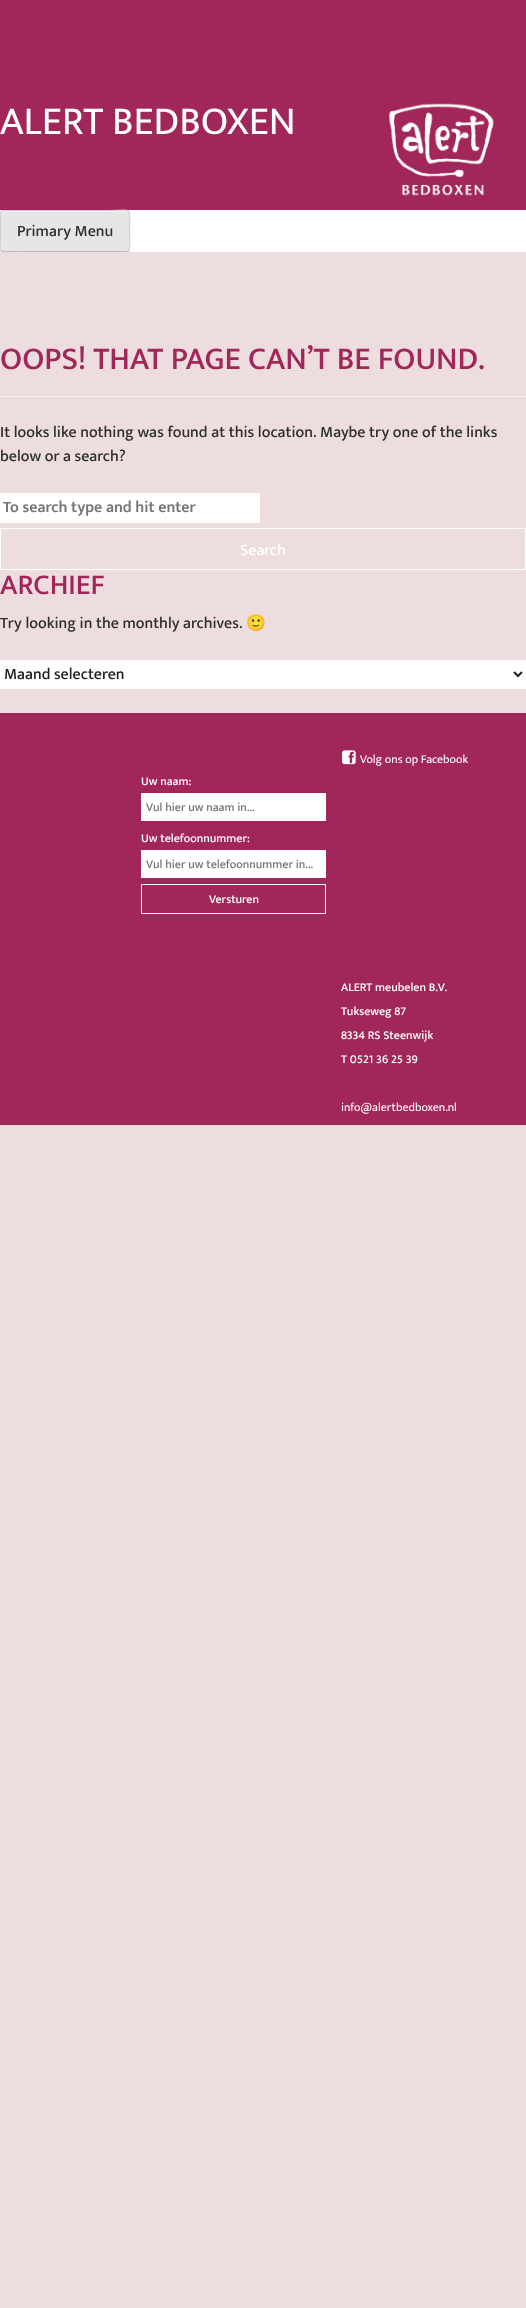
(async () => {
    const canvas = document.querySelector("canvas");
    canvas.width = 526;
    canvas.height = 2308;
    const context = canvas.getContext("2d");
    context.miterLimit = 4;
    context.fontKerning = "normal";
    function write(s, x, y, font, color) {
        context.font = font;
        context.fillStyle = color;
        context.fillText(s, x, y);
    }
    function block(x, y, w, h, color) {
        context.fillStyle = color;
        context.fillRect(x, y, w, h);
    }
    function card(x, y, w, h, r, color) {
        context.fillStyle = color;
        context.beginPath();
        context.roundRect(x, y, w, h, r);
        context.fill();
    }
    async function photo(src, x, y, w, h) {
        const img = new Image();
        img.src = src;
        await img.decode();
        context.drawImage(img, x, y, w, h);
    }

    block(0, 0, 526, 2308, "rgb(238, 221, 223)");
    block(0, 0, 526, 210, "rgb(161, 39, 90)");
    write("ALERT BEDBOXEN", 0, 134, "40px Ek Mukta", "rgb(255, 255, 255)");
    await photo("media/1.png", 388, 103, 106, 93);
    block(0, 210, 526, 42, "rgb(255, 255, 255)");
    card(0, 210, 130, 42, 3, "rgb(230, 230, 230)");
    context.fillStyle = "rgb(243, 243, 243)";
    context.beginPath();
    context.moveTo(3, 212);
    context.lineTo(127, 212);
    context.lineTo(129, 213);
    context.lineTo(129, 214);
    context.lineTo(128, 212);
    context.lineTo(127, 211);
    context.lineTo(2, 211);
    context.bezierCurveTo(1, 212, 1, 213, 1, 214);
    context.bezierCurveTo(1, 213, 2, 212, 3, 212);
    context.closePath();
    context.fill();
    context.beginPath();
    context.moveTo(129, 251);
    context.lineTo(127, 251.5);
    context.lineTo(23.5, 251.5);
    context.lineTo(3, 251.5);
    context.lineTo(1, 251);
    context.strokeStyle = "rgb(187, 187, 187)";
    context.stroke();
    context.beginPath();
    context.moveTo(1, 251);
    context.bezierCurveTo(-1, 249, 0.5, 239.5, 0.5, 237);
    context.lineTo(0.5, 219);
    context.bezierCurveTo(0.5, 217.5, -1, 210.5, 3, 210.5);
    context.lineTo(106.5, 210.5);
    context.bezierCurveTo(134.5, 210.5, 129.5, 205, 129.5, 231);
    context.bezierCurveTo(129.5, 234, 130.5, 249, 129, 251);
    context.strokeStyle = "rgb(204, 204, 204)";
    context.stroke();
    write("Primary Menu", 17, 236, "500 16px Ek Mukta", "rgb(46, 46, 46)");
    block(0, 396, 526, 1, "rgb(238, 238, 238)");
    write("OOPS! THAT PAGE CAN’T BE FOUND.", 0, 369, "500 32px Ek Mukta", "rgb(161, 39, 90)");
    write("It looks like nothing was found at this location. Maybe try one of the links", 0, 437, "500 16px Ek Mukta", "rgb(46, 46, 46)");
    write("below or a search?", 0, 461, "500 16px Ek Mukta", "rgb(46, 46, 46)");
    block(0, 493, 260, 30, "rgb(255, 255, 255)");
    write("To search type and hit enter", 3, 512, "600 16px Ek Mukta", "rgb(117, 117, 117)");
    context.strokeStyle = "rgb(255, 255, 255)";
    context.strokeRect(0.5, 528.5, 525, 41);
    write("Search", 240, 555, "500 16px Ek Mukta", "rgb(255, 255, 255)");
    write("ARCHIEF", 0, 594, "500 29px Ek Mukta", "rgb(161, 39, 90)");
    write("Try looking in the monthly archives.", 0, 628, "500 16px Ek Mukta", "rgb(46, 46, 46)");
    write("🙂", 246, 628, "16px Noto Color Emoji", "rgb(46, 46, 46)");
    block(0, 660, 526, 29, "rgb(255, 255, 255)");
    context.beginPath();
    context.moveTo(514, 672);
    context.lineTo(518, 676);
    context.lineTo(522, 672);
    context.strokeStyle = "rgb(33, 33, 33)";
    context.lineWidth = 2;
    context.stroke();
    write("Maand selecteren", 4, 679, "500 16px Ek Mukta", "rgb(33, 33, 33)");
    block(0, 713, 526, 412, "rgb(161, 39, 90)");
    await photo("media/2.png", 342, 750, 14, 15);
    write("Volg ons op Facebook", 360, 763, "12px Ek Mukta", "rgb(255, 255, 255)");
    write("Uw naam:", 141, 785, "500 12px Ek Mukta", "rgb(255, 255, 255)");
    block(141, 793, 185, 28, "rgb(255, 255, 255)");
    write("Vul hier uw naam in...", 146, 811, "500 12px Ek Mukta", "rgb(117, 117, 117)");
    write("Uw telefoonnummer:", 141, 842, "500 12px Ek Mukta", "rgb(255, 255, 255)");
    block(141, 850, 185, 28, "rgb(255, 255, 255)");
    write("Vul hier uw telefoonnummer in...", 146, 868, "500 12px Ek Mukta", "rgb(117, 117, 117)");
    context.strokeStyle = "rgb(255, 255, 255)";
    context.lineWidth = 1;
    context.strokeRect(141.5, 884.5, 184, 29);
    write("Versturen", 209, 903, "500 12px Ek Mukta", "rgb(255, 255, 255)");
    write("ALERT meubelen B.V.", 341, 991, "500 12px Ek Mukta", "rgb(255, 255, 255)");
    write("Tukseweg 87", 341, 1015, "500 12px Ek Mukta", "rgb(255, 255, 255)");
    write("8334 RS Steenwijk", 341, 1039, "500 12px Ek Mukta", "rgb(255, 255, 255)");
    write("T 0521 36 25 39", 341, 1063, "500 12px Ek Mukta", "rgb(255, 255, 255)");
    write("info@alertbedboxen.nl", 341, 1111, "12px Ek Mukta", "rgb(255, 255, 255)");
})();
